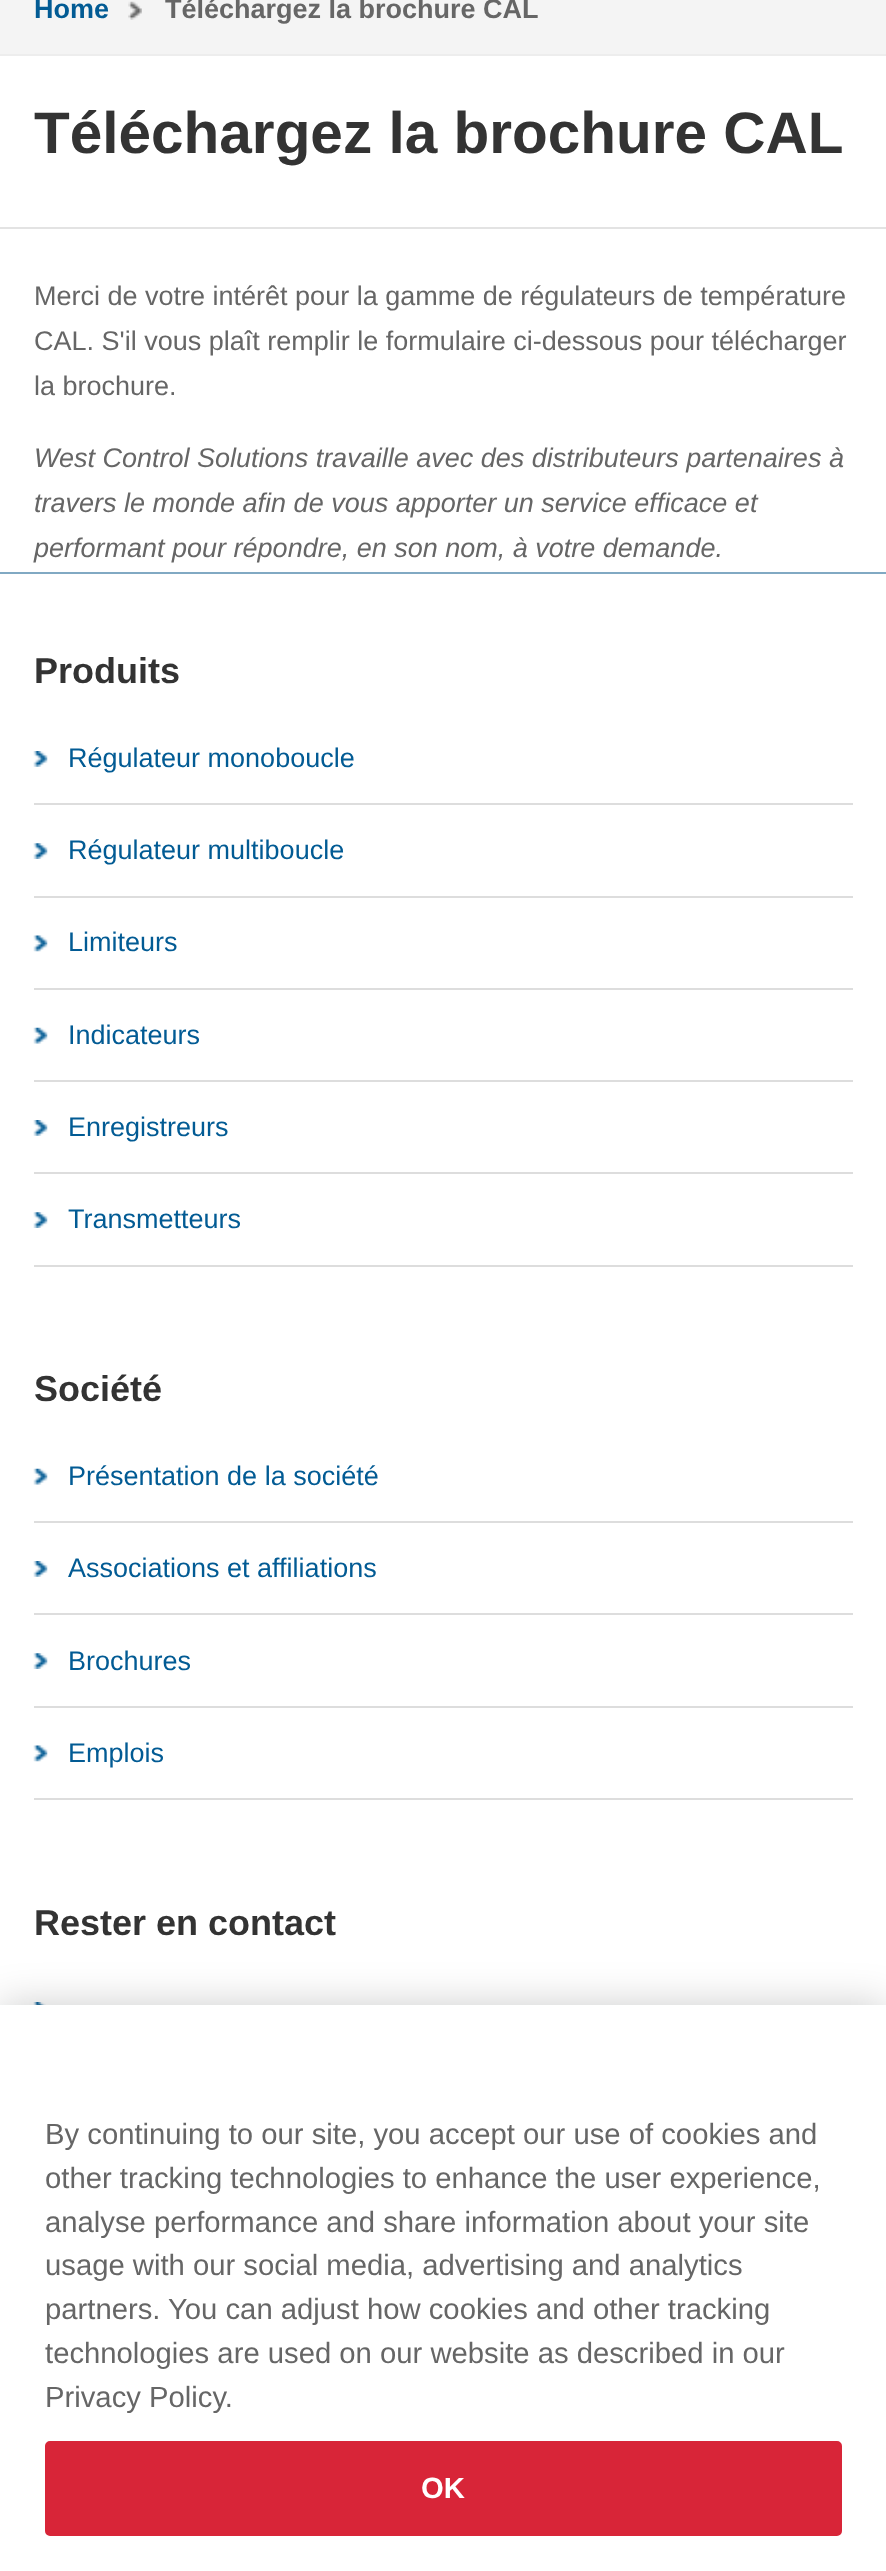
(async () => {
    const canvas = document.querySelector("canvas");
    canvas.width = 886;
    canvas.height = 2571;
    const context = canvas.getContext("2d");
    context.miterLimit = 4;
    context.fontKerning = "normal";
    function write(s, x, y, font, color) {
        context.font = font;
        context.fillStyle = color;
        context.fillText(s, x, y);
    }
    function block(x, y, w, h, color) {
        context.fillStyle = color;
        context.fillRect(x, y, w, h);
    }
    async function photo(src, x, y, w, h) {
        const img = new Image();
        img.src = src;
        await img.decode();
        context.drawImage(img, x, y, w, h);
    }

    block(0, 0, 886, 2571, "rgb(255, 255, 255)");
    block(0, 0, 886, 54, "rgb(244, 244, 244)");
    block(0, 54, 886, 2, "rgb(237, 237, 237)");
    await photo("media/1.png", 128, 1, 14, 19);
    write("Home", 34, 18, "bold 27px Liberation Sans", "rgb(2, 91, 148)");
    write("Téléchargez la brochure CAL", 165, 18, "bold 27px Liberation Sans", "rgb(102, 102, 102)");
    block(0, 227, 886, 2, "rgb(227, 227, 227)");
    write("Téléchargez la brochure CAL", 34, 153, "bold 58.5px Liberation Sans", "rgb(51, 51, 51)");
    write("Merci de votre intérêt pour la gamme de régulateurs de température", 34, 305, "27px Liberation Sans", "rgb(102, 102, 102)");
    write("CAL. S'il vous plaît remplir le formulaire ci-dessous pour télécharger", 34, 350, "27px Liberation Sans", "rgb(102, 102, 102)");
    write("la brochure.", 34, 395, "27px Liberation Sans", "rgb(102, 102, 102)");
    write("West Control Solutions travaille avec des distributeurs partenaires à", 34, 467, "italic 27px Liberation Sans", "rgb(102, 102, 102)");
    write("travers le monde afin de vous apporter un service efficace et", 34, 512, "italic 27px Liberation Sans", "rgb(102, 102, 102)");
    write("performant pour répondre, en son nom, à votre demande.", 34, 557, "italic 27px Liberation Sans", "rgb(102, 102, 102)");
    block(0, 572, 886, 2, "rgb(129, 169, 195)");
    write("Produits", 34, 683, "bold 36px Liberation Sans", "rgb(51, 51, 51)");
    await photo("media/2.png", 33, 751, 15, 16);
    block(34, 803, 819, 2, "rgb(221, 221, 221)");
    write("Régulateur monoboucle", 68, 767, "27px Liberation Sans", "rgb(2, 91, 148)");
    await photo("media/3.png", 33, 843, 15, 16);
    block(34, 896, 819, 2, "rgb(221, 221, 221)");
    write("Régulateur multiboucle", 68, 859, "27px Liberation Sans", "rgb(2, 91, 148)");
    await photo("media/4.png", 33, 935, 15, 17);
    block(34, 988, 819, 2, "rgb(221, 221, 221)");
    write("Limiteurs", 68, 951, "27px Liberation Sans", "rgb(2, 91, 148)");
    await photo("media/5.png", 33, 1027, 15, 17);
    block(34, 1080, 819, 2, "rgb(221, 221, 221)");
    write("Indicateurs", 68, 1044, "27px Liberation Sans", "rgb(2, 91, 148)");
    await photo("media/6.png", 33, 1120, 15, 16);
    block(34, 1172, 819, 2, "rgb(221, 221, 221)");
    write("Enregistreurs", 68, 1136, "27px Liberation Sans", "rgb(2, 91, 148)");
    await photo("media/3.png", 33, 1212, 15, 16);
    block(34, 1265, 819, 2, "rgb(221, 221, 221)");
    write("Transmetteurs", 68, 1228, "27px Liberation Sans", "rgb(2, 91, 148)");
    write("Société", 34, 1401, "bold 36px Liberation Sans", "rgb(51, 51, 51)");
    await photo("media/5.png", 33, 1468, 15, 17);
    block(34, 1521, 819, 2, "rgb(221, 221, 221)");
    write("Présentation de la société", 68, 1485, "27px Liberation Sans", "rgb(2, 91, 148)");
    await photo("media/2.png", 33, 1561, 15, 16);
    block(34, 1613, 819, 2, "rgb(221, 221, 221)");
    write("Associations et affiliations", 68, 1577, "27px Liberation Sans", "rgb(2, 91, 148)");
    await photo("media/3.png", 33, 1653, 15, 16);
    block(34, 1706, 819, 2, "rgb(221, 221, 221)");
    write("Brochures", 68, 1670, "27px Liberation Sans", "rgb(2, 91, 148)");
    await photo("media/4.png", 33, 1745, 15, 17);
    block(34, 1798, 819, 2, "rgb(221, 221, 221)");
    write("Emplois", 68, 1762, "27px Liberation Sans", "rgb(2, 91, 148)");
    write("Rester en contact", 34, 1935, "bold 36px Liberation Sans", "rgb(51, 51, 51)");
    await photo("media/7.png", 33, 2002, 15, 3);
    context.fillStyle = "rgba(0, 0, 0, 0.2)";
    context.filter = "blur(20px)";
    context.beginPath();
    context.rect(0, 2005, 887, 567);
    context.fill();
    context.filter = "none";
    block(0, 2005, 886, 566, "rgb(255, 255, 255)");
    write("By continuing to our site, you accept our use of cookies and", 45, 2144, "29.25px Liberation Sans", "rgb(102, 102, 102)");
    write("other tracking technologies to enhance the user experience,", 45, 2188, "29.25px Liberation Sans", "rgb(102, 102, 102)");
    write("analyse performance and share information about your site", 45, 2232, "29.25px Liberation Sans", "rgb(102, 102, 102)");
    write("usage with our social media, advertising and analytics", 45, 2275, "29.25px Liberation Sans", "rgb(102, 102, 102)");
    write("partners.", 45, 2319, "29.25px Liberation Sans", "rgb(102, 102, 102)");
    write("You can adjust how cookies and other tracking", 168, 2319, "29.25px Liberation Sans", "rgb(102, 102, 102)");
    write("technologies are used on our website as described in our", 45, 2363, "29.25px Liberation Sans", "rgb(102, 102, 102)");
    write("Privacy Policy.", 45, 2407, "29.25px Liberation Sans", "rgb(102, 102, 102)");
    context.fillStyle = "rgb(216, 37, 56)";
    context.beginPath();
    context.roundRect(46, 2442, 795, 93, 4);
    context.fill();
    context.strokeStyle = "rgb(216, 37, 56)";
    context.lineWidth = 2;
    context.stroke();
    write("OK", 421, 2498, "bold 29.25px Liberation Sans", "rgb(255, 255, 255)");
})();
